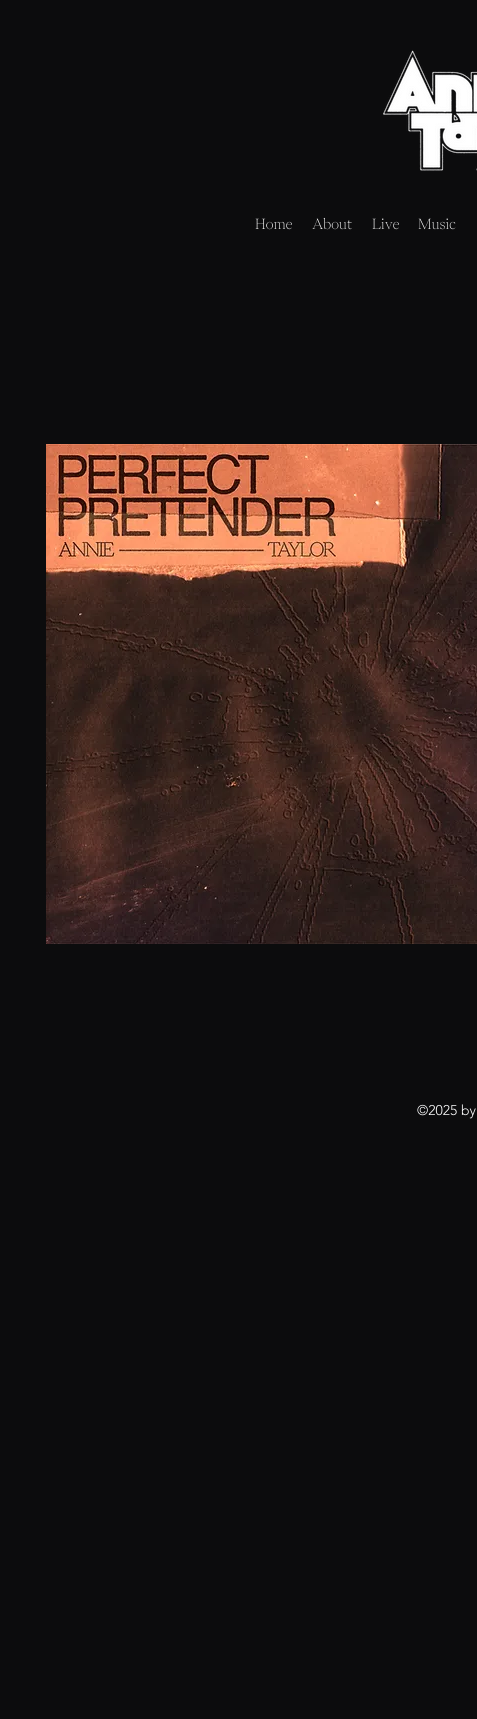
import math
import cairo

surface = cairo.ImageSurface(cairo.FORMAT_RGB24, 477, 1719)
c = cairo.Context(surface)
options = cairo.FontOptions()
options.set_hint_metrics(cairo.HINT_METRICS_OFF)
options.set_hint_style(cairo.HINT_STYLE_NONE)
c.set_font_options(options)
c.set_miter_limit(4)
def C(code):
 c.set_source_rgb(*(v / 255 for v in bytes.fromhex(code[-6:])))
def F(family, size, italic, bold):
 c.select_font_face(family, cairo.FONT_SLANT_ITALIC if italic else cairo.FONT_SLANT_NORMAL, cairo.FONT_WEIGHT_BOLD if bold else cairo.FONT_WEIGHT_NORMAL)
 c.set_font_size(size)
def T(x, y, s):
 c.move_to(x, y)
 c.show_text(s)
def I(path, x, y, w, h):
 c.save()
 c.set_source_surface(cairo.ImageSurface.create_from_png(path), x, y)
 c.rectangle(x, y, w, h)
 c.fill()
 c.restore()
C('0c0c0d')
c.paint()
I('1.png',383,50,94,121)
F('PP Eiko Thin',14,0,0)
C('ffffff')
T(255,229,'Home')
T(312,229,'About')
T(372,229,'Live')
T(418,229,'Music')
I('2.png',46,444,431,500)
F('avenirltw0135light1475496 Light',14,0,0)
T(417,1115,'©2025 by')
surface.write_to_png('o.png')
